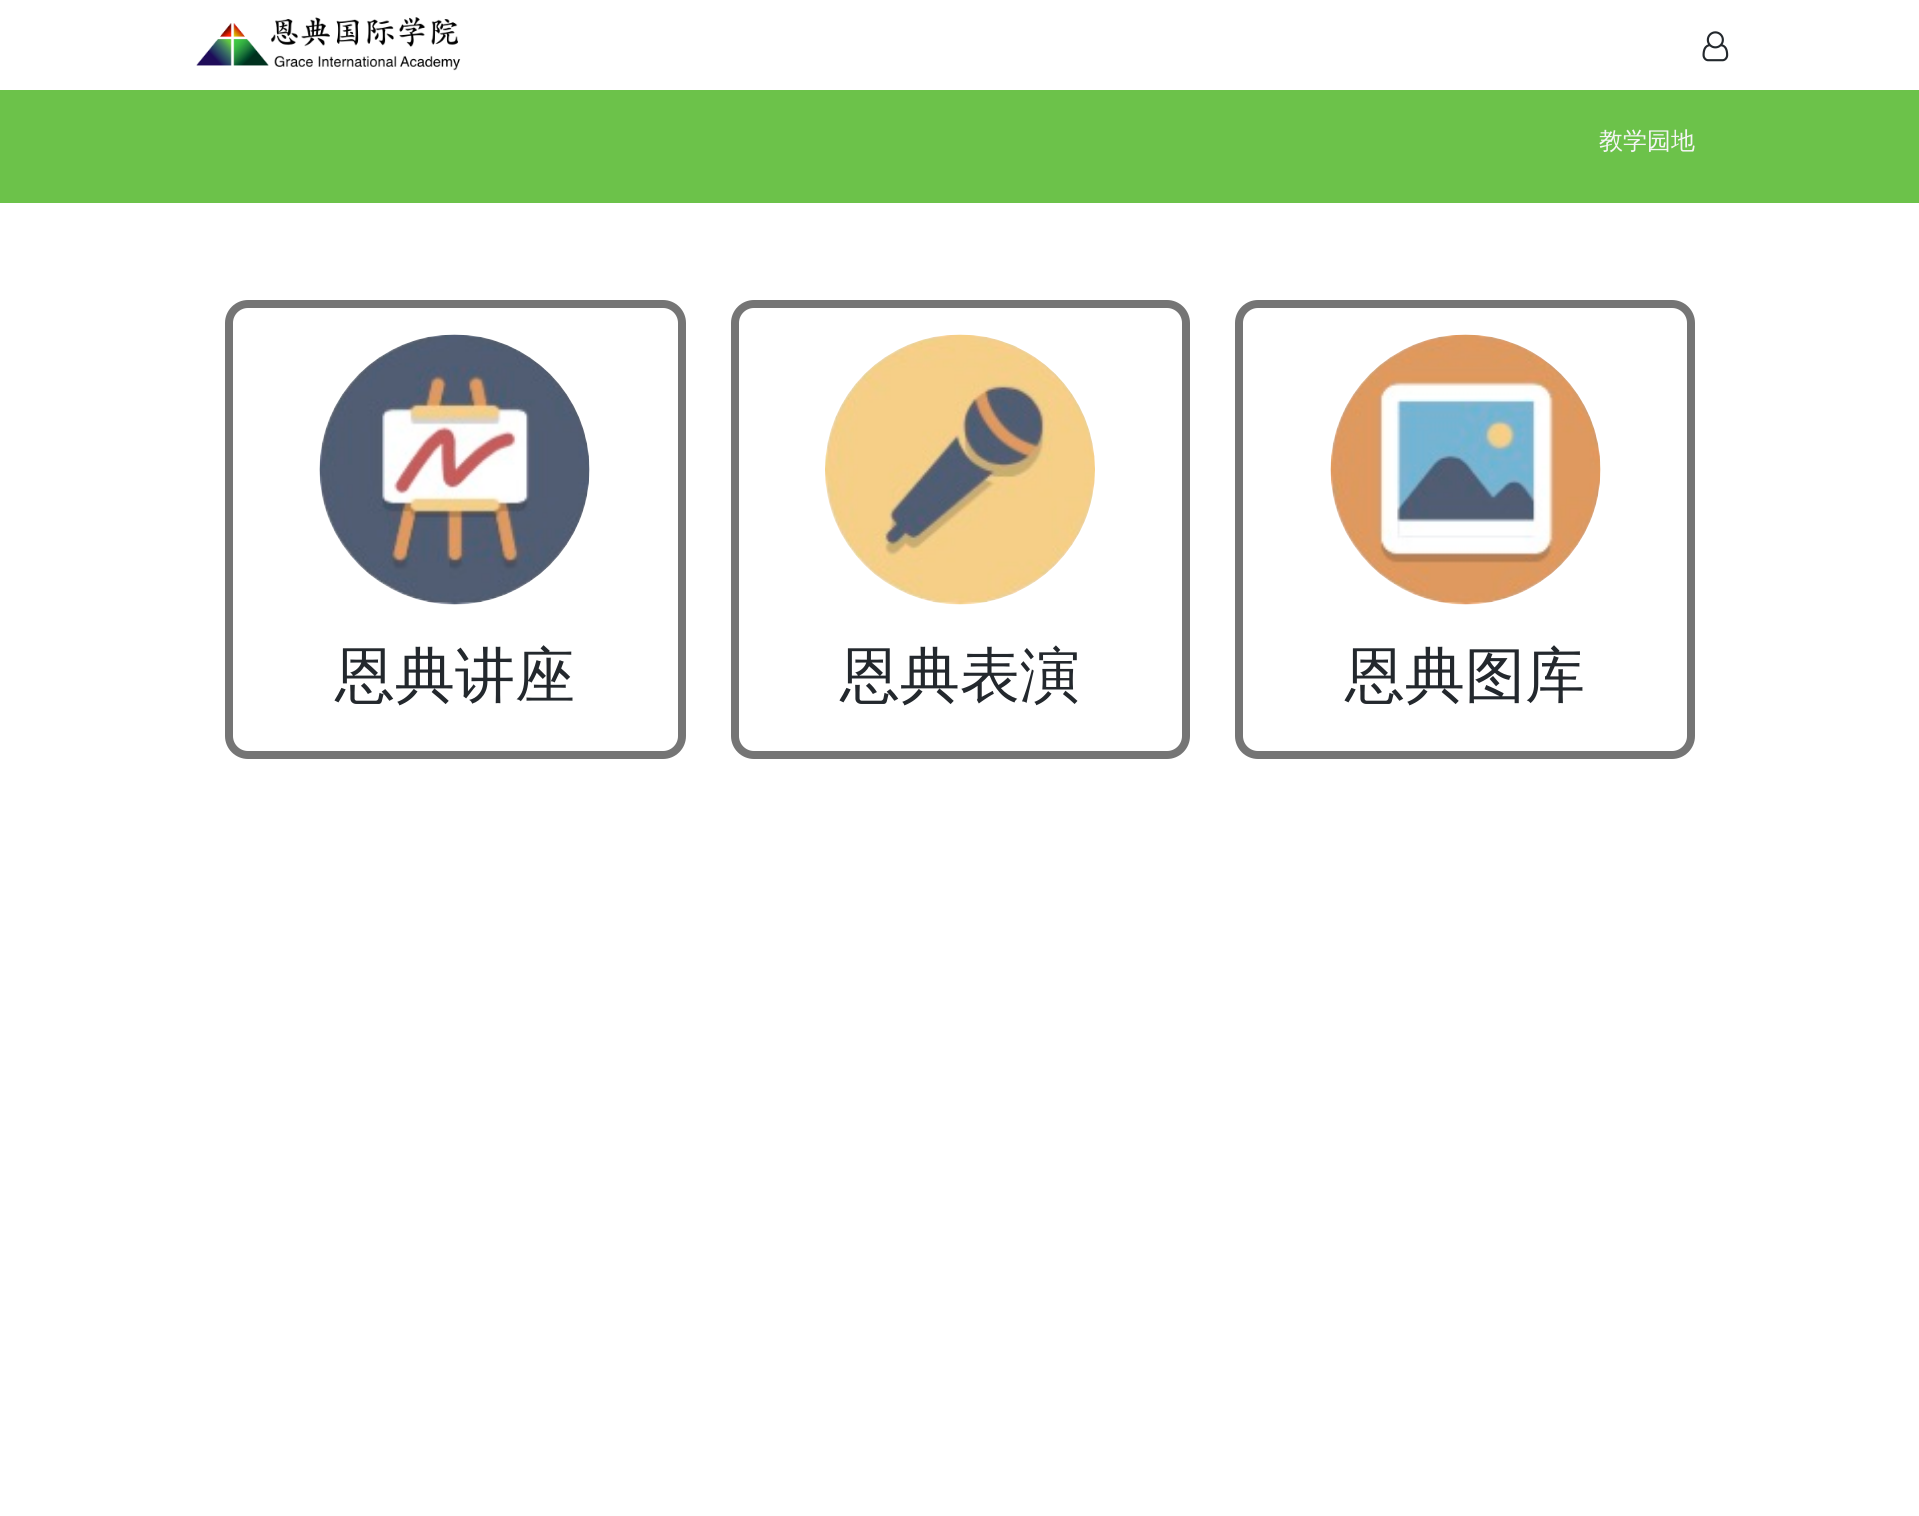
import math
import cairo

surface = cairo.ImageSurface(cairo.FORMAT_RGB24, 1919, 1516)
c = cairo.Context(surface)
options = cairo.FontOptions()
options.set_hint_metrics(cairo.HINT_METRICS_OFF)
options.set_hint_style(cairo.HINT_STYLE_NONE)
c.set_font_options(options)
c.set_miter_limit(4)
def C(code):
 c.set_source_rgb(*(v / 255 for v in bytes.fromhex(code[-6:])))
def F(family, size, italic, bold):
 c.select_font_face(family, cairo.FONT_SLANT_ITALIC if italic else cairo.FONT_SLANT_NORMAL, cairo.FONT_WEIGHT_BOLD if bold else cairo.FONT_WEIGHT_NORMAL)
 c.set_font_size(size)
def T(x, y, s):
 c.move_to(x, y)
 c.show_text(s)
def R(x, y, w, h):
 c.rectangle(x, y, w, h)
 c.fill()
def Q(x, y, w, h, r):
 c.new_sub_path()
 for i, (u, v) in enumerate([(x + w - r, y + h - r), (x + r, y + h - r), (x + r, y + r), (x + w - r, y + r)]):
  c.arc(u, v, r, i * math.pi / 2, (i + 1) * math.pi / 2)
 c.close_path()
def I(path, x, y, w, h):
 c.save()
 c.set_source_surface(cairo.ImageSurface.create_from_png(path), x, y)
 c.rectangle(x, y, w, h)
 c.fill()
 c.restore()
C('ffffff')
c.paint()
I('1.png',196,17,265,54)
I('2.png',1702,31,27,31)
C('6cc24a')
R(0,90,1919,113)
F('WenQuanYi Zen Hei Medium',24,0,0)
C('f5f5f5')
T(1599,149,'教学园地')
Q(229,304,453,451,19)
C('757575')
c.set_line_width(8)
c.stroke()
I('3.png',319,334,271,271)
F('WenQuanYi Zen Hei Medium',60,0,0)
C('23282d')
T(335,696,'恩典讲座')
Q(735,304,451,451,19)
C('757575')
c.stroke()
I('4.png',825,334,270,271)
C('23282d')
T(840,696,'恩典表演')
Q(1239,304,452,451,19)
C('757575')
c.stroke()
I('5.png',1330,334,271,271)
C('23282d')
T(1345,696,'恩典图库')
surface.write_to_png('o.png')
